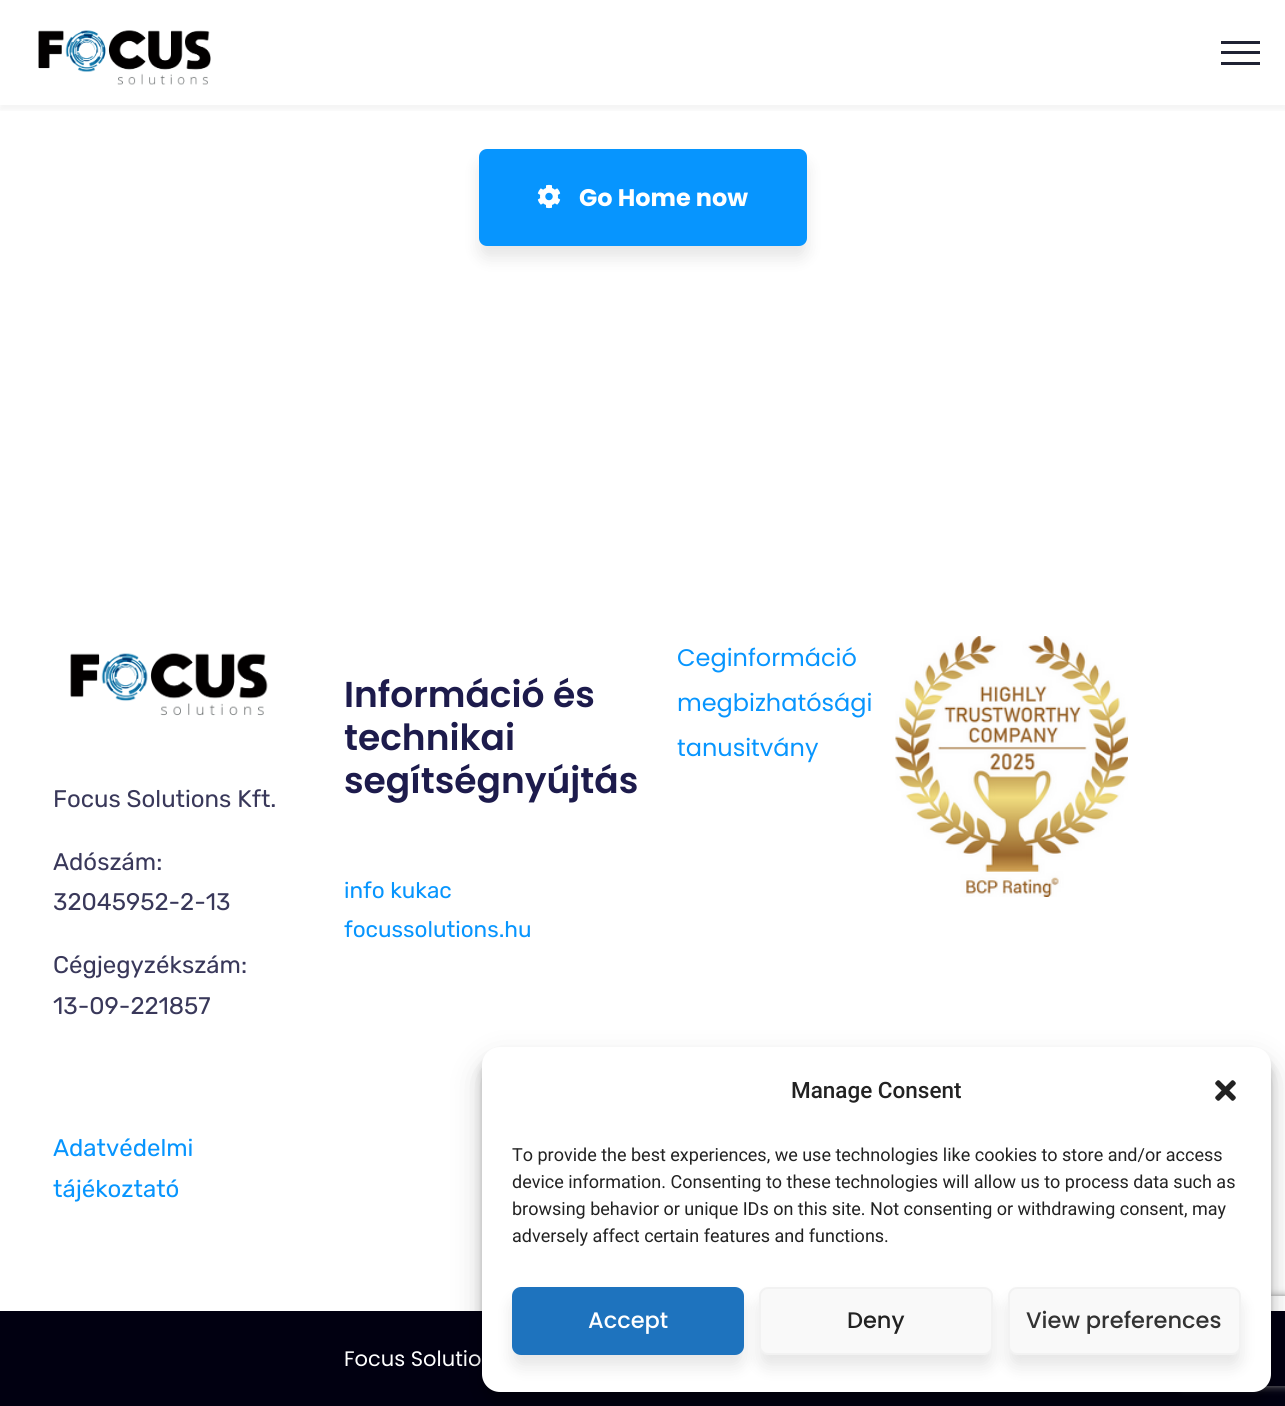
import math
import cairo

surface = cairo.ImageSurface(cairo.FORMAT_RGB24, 1285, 1406)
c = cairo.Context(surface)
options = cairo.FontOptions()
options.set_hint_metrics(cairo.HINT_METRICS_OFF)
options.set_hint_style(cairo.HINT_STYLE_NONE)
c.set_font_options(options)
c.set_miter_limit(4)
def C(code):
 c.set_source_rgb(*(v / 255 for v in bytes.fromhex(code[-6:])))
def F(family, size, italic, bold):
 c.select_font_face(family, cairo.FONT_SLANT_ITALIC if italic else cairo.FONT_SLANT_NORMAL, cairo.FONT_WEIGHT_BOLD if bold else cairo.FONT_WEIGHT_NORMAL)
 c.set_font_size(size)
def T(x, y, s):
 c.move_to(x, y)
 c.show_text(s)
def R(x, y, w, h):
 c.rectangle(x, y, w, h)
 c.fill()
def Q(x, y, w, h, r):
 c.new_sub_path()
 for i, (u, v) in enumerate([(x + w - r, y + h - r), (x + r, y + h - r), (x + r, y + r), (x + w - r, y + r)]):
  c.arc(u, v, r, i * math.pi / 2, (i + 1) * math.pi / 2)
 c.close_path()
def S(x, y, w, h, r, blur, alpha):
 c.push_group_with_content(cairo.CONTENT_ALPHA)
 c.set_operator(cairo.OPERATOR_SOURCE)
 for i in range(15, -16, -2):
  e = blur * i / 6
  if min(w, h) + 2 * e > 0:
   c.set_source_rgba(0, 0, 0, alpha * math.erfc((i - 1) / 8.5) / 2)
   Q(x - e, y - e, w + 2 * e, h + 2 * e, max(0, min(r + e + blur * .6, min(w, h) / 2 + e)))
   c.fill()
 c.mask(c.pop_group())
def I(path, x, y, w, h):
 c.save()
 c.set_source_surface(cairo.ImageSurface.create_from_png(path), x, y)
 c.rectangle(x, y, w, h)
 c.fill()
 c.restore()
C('ffffff')
c.paint()
c.save()
c.rectangle(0,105,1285,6)
c.clip()
C('000000')
S(0,5,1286,105,0,4.5,.05)
c.restore()
I('1.png',38,30,173,55)
C('1f2233')
R(1221,41,39,3)
R(1221,51,39,3)
R(1221,62,39,3)
C('0c0c0c')
S(479,161,328,97,8,7.5,.1)
C('0795fe')
Q(479,149,328,97,8)
c.fill()
I('2.png',537,184,24,25)
F('Poppins',24,0,1)
C('ffffff')
T(579,206,'Go Home now')
I('3.png',70,653,198,63)
F('Rubik',24,0,0)
C('39385a')
T(53,807,'Focus Solutions Kft.')
T(53,870,'Adószám:')
T(53,910,'32045952-2-13')
T(53,973,'Cégjegyzékszám:')
T(53,1014,'13-09-221857')
F('Poppins SemiBold',36,0,0)
C('1d1b4c')
T(344,707,'Információ és')
T(344,750,'technikai')
T(344,793,'segítségnyújtás')
F('Rubik',22.5,0,0)
C('0795fe')
T(344,898,'info kukac')
T(344,937,'focussolutions.hu')
F('Poppins',24,0,0)
T(677,666,'Ceginformáció')
T(677,711,'megbizhatósági')
T(677,756,'tanusitvány')
I('4.png',895,636,233,261)
F('Rubik',24,0,0)
T(53,1156,'Adatvédelmi')
T(53,1197,'tájékoztató')
C('010011')
R(0,1311,1285,95)
F('Poppins',21,0,0)
C('ffffff')
T(344,1366,'Focus Solutio')
C('000000')
S(482,1056,789,345,18,4.5,.23)
S(482,1062,789,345,18,15,.19)
c.save()
c.set_fill_rule(cairo.FILL_RULE_EVEN_ODD)
c.new_path()
c.move_to(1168,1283)
c.line_to(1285,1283)
c.line_to(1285,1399)
c.line_to(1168,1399)
c.close_path()
c.move_to(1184,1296)
c.line_to(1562,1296)
c.curve_to(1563.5,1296,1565,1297.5,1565,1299)
c.line_to(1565,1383)
c.curve_to(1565,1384.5,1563.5,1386,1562,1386)
c.line_to(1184,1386)
c.curve_to(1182.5,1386,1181,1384.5,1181,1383)
c.line_to(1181,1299)
c.curve_to(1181,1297.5,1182.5,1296,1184,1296)
c.close_path()
c.clip()
C('808080')
S(1181,1296,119,90,3,4,1)
c.restore()
C('ffffff')
Q(482,1047,789,345,18)
c.fill()
F('Roboto Medium',22.5,0,0)
C('222222')
T(791,1098,'Manage Consent')
I('5.png',1215,1080,21,21)
F('Roboto',18,0,0)
T(512,1161,'To provide the best experiences, we use technologies like cookies to store and/or access')
T(512,1188,'device information. Consenting to these technologies will allow us to process data such as')
T(512,1215,'browsing behavior or unique IDs on this site. Not consenting or withdrawing consent, may')
T(512,1242,'adversely affect certain features and functions.')
C('0c0c0c')
S(512,1299,232,68,9,7.5,.1)
C('1e73be')
Q(513,1288,230,66,8)
c.fill_preserve()
c.stroke()
F('Poppins Medium',22.5,0,0)
C('ffffff')
T(588,1328,'Accept')
C('0c0c0c')
S(759,1299,234,68,9,7.5,.1)
C('f9f9f9')
Q(760,1288,232,66,8)
c.fill_preserve()
C('f2f2f2')
c.stroke()
C('222222')
T(847,1328,'Deny')
C('0c0c0c')
S(1008,1299,233,68,9,7.5,.1)
C('f9f9f9')
Q(1009,1288,231,66,8)
c.fill_preserve()
C('f2f2f2')
c.stroke()
C('333333')
T(1026,1328,'View preferences')
surface.write_to_png('o.png')
